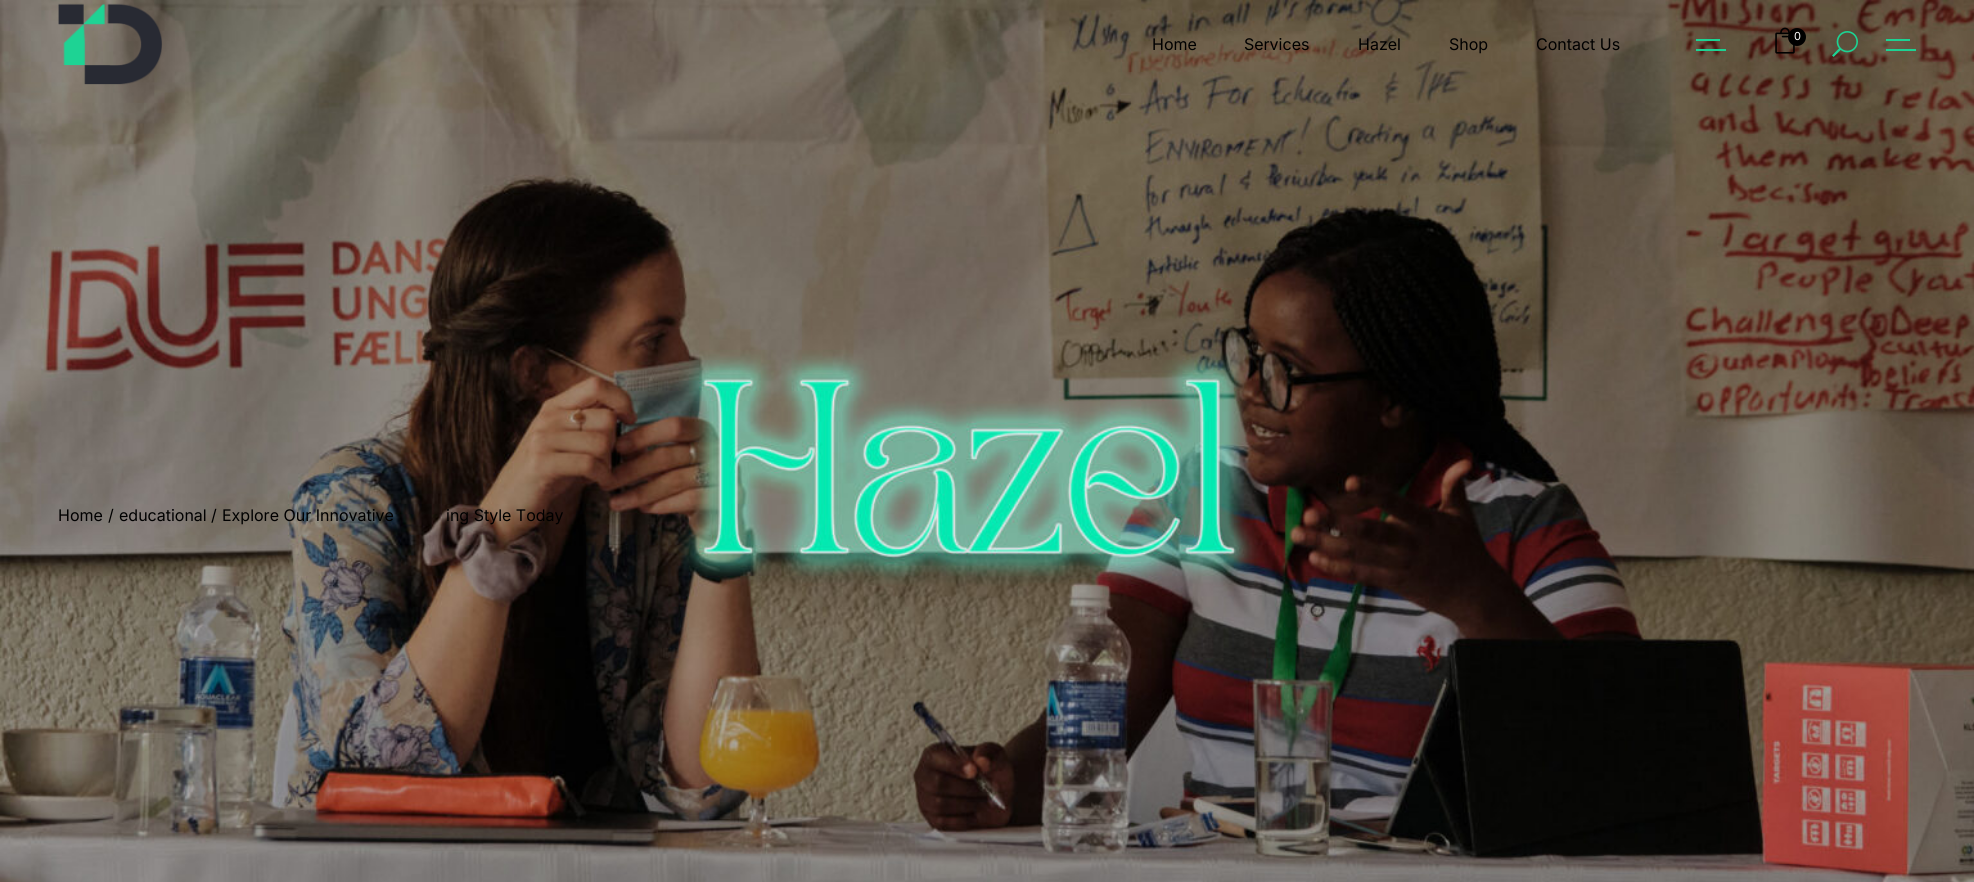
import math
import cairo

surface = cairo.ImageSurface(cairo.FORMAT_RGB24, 1974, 882)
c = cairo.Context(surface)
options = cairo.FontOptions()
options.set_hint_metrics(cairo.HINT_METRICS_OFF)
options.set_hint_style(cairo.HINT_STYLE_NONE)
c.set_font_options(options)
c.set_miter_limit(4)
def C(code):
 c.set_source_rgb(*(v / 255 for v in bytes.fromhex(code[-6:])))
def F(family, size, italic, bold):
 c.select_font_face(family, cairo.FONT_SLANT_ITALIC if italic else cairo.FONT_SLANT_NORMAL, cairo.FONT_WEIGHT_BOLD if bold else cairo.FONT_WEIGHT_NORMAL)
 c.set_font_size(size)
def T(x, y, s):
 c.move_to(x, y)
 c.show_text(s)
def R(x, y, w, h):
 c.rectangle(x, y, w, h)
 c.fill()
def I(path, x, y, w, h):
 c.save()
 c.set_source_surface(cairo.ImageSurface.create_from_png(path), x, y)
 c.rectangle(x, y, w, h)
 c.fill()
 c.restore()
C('ffffff')
c.paint()
I('4.png',0,0,1974,882)
I('1.png',58,3,104,82)
C('1cd393')
R(1696,39,24,2)
R(1696,49,30,2)
I('2.png',1775,27,20,27)
C('000000')
c.arc(1797,37,9,0,2 * math.pi)
c.fill()
F('Inter',11,0,0)
C('ffffff')
T(1794,40,'0')
I('3.png',1832,31,26,26)
C('1cd393')
R(1886,39,24,2)
R(1886,49,30,2)
F('Inter',16,0,0)
C('000000')
T(1152,50,'Home')
T(1244,50,'Services')
T(1358,50,'Hazel')
T(1449,50,'Shop')
T(1536,50,'Contact Us')
T(58,521,'Home')
T(108,521,'/')
T(119,521,'educational')
T(211,521,'/')
T(222,521,'Explore Our Innovative')
T(446,521,'ing Style Today')
surface.write_to_png('o.png')
